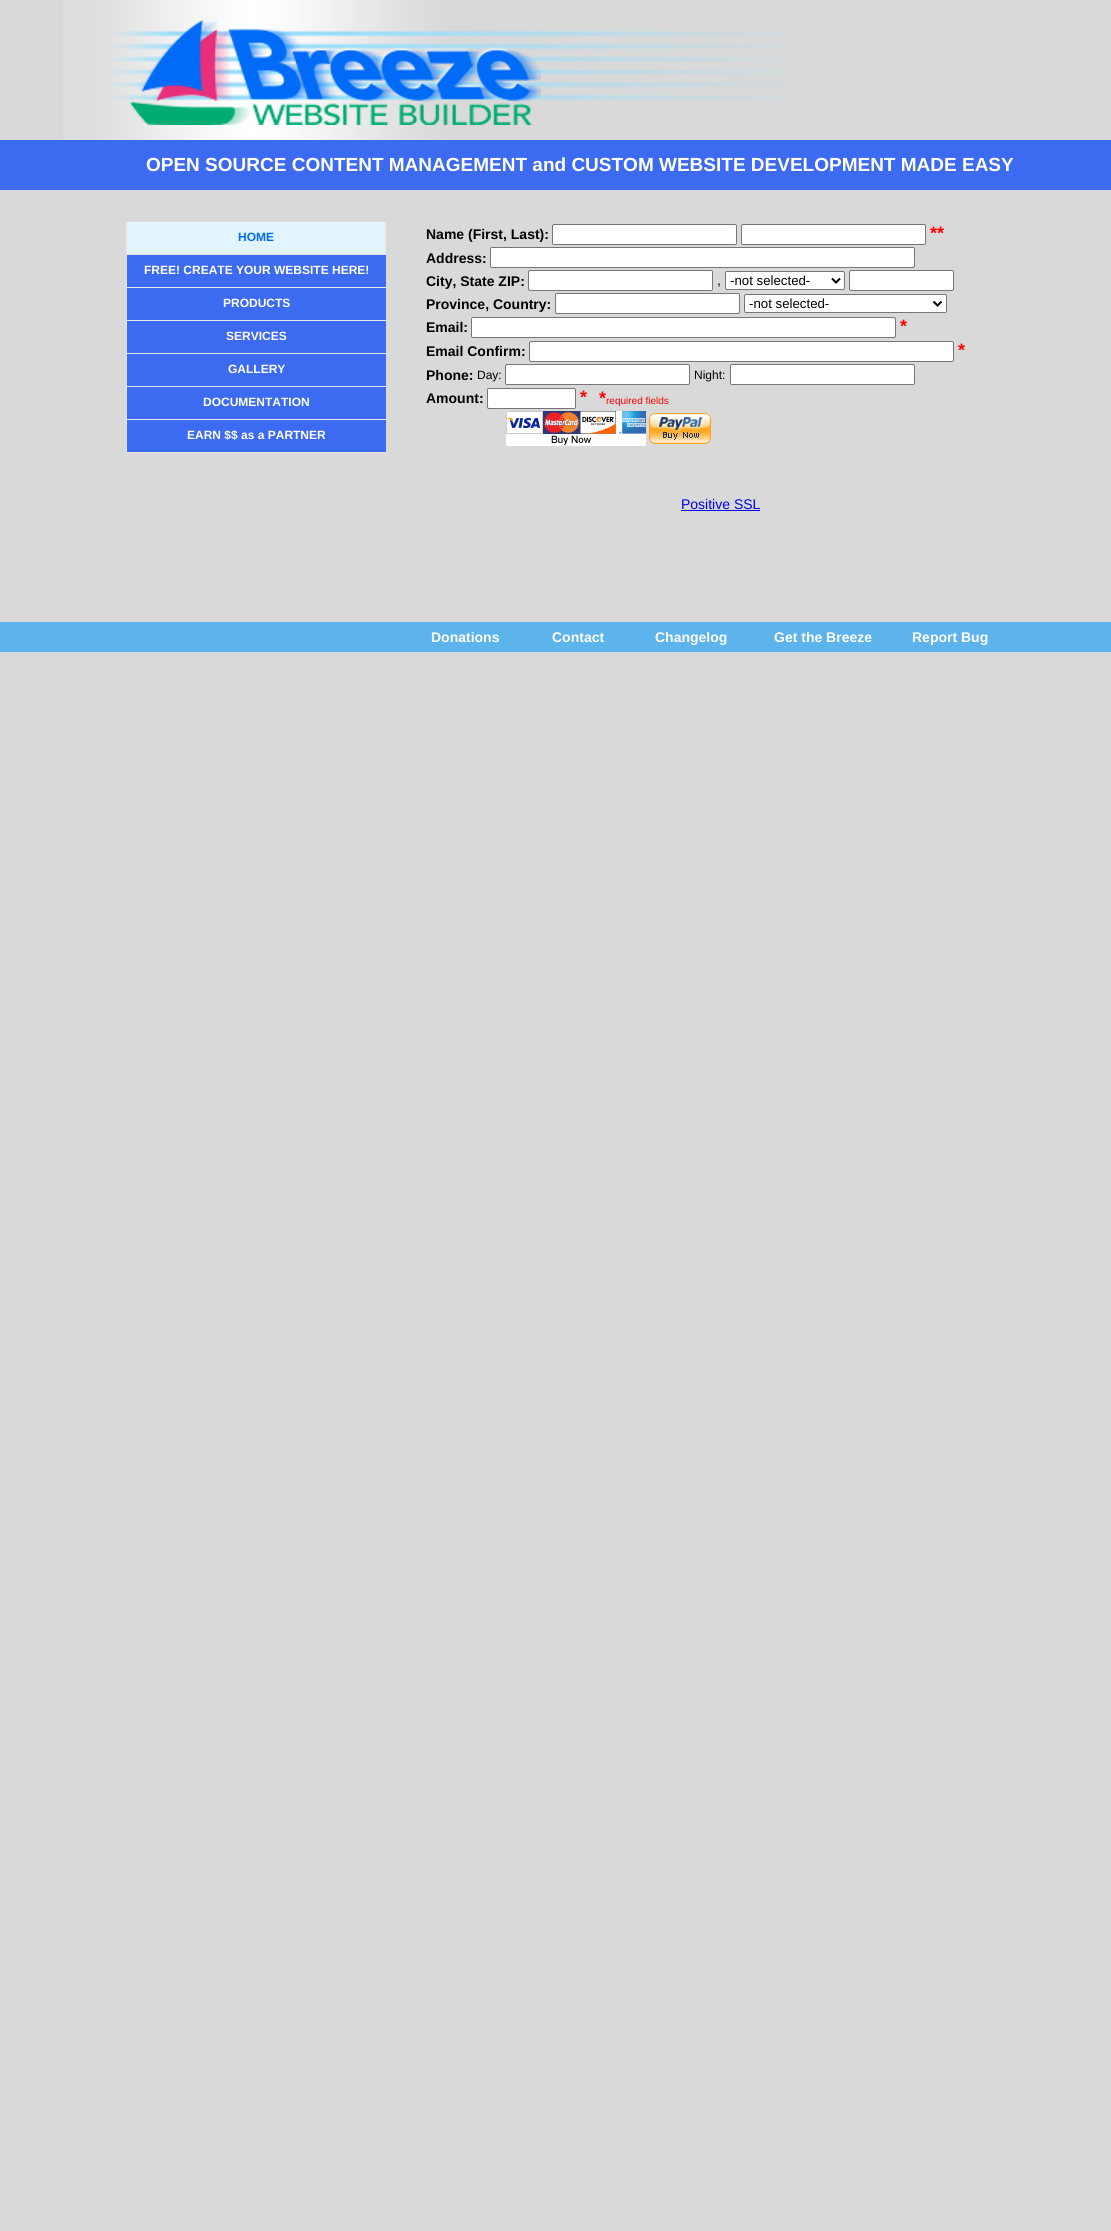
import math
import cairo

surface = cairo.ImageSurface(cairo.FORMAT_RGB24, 1111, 2231)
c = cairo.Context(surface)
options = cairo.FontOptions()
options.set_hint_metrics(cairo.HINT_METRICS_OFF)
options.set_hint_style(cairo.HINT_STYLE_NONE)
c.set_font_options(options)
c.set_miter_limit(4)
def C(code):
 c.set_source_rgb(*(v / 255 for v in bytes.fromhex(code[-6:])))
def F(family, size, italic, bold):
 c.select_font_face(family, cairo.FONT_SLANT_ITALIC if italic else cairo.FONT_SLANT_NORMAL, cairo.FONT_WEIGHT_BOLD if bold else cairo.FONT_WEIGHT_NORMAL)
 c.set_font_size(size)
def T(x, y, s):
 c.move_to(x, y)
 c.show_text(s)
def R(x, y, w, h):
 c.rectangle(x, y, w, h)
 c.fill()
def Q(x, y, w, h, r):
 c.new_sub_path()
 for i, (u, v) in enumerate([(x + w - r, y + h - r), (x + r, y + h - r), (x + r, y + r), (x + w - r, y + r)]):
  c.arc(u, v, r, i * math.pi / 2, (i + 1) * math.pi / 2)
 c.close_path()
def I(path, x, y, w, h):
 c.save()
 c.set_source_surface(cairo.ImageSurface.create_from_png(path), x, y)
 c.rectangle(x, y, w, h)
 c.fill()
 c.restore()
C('d9d9d9')
c.paint()
I('1.png',63,0,728,140)
I('2.png',130,20,411,105)
C('3c6af1')
R(0,140,1111,50)
F('Liberation Sans',19,0,1)
C('ffffff')
T(146,171,'OPEN SOURCE CONTENT MANAGEMENT and CUSTOM WEBSITE DEVELOPMENT MADE EASY')
C('e2f4ff')
R(127,222,258,32)
C('e3e5e6')
R(385,222,1,33)
R(126,254,260,1)
R(126,222,1,33)
F('Liberation Sans',12,0,1)
C('006bf6')
T(238,241,'HOME')
C('3c6af1')
R(127,255,259,32)
C('e3e5e6')
R(126,287,260,1)
R(126,255,1,33)
C('ffffff')
T(144,274,'FREE! CREATE YOUR WEBSITE HERE!')
C('3c6af1')
R(127,288,259,32)
C('e3e5e6')
R(126,320,260,1)
R(126,288,1,33)
C('ffffff')
T(223,307,'PRODUCTS')
C('3c6af1')
R(127,321,259,32)
C('e3e5e6')
R(126,353,260,1)
R(126,321,1,33)
C('ffffff')
T(226,340,'SERVICES')
C('3c6af1')
R(127,354,259,32)
C('e3e5e6')
R(126,386,260,1)
R(126,354,1,33)
C('ffffff')
T(228,373,'GALLERY')
C('3c6af1')
R(127,387,259,32)
C('e3e5e6')
R(126,419,260,1)
R(126,387,1,33)
C('ffffff')
T(203,406,'DOCUMENTATION')
C('3c6af1')
R(127,420,259,32)
C('e3e5e6')
R(126,452,260,1)
R(126,420,1,33)
C('ffffff')
T(187,439,'EARN $$ as a PARTNER')
F('Liberation Sans',14,0,1)
C('000000')
T(426,239,'Name (First, Last):')
C('ffffff')
Q(552.5,224.5,184,20,1.5)
c.fill_preserve()
C('767676')
c.set_line_width(1)
c.stroke()
C('ffffff')
Q(741.5,224.5,184,20,1.5)
c.fill_preserve()
C('767676')
c.stroke()
F('Liberation Sans',18,0,1)
C('ff0000')
T(930,239,'**')
F('Liberation Sans',14,0,1)
C('000000')
T(426,263,'Address:')
C('ffffff')
Q(490.5,247.5,424,20,1.5)
c.fill_preserve()
C('767676')
c.stroke()
C('000000')
T(426,286,'City, State ZIP:')
C('ffffff')
Q(528.5,270.5,184,20,1.5)
c.fill_preserve()
C('767676')
c.stroke()
F('Liberation Sans',14,0,0)
C('000000')
T(717,285,',')
C('ffffff')
Q(725.5,271.5,119,18,1.5)
c.fill_preserve()
C('767676')
c.stroke()
c.new_path()
c.move_to(832,278.5)
c.line_to(836,282.5)
c.line_to(840,278.5)
C('000000')
c.set_line_width(2)
c.stroke()
F('Liberation Sans',13.25,0,0)
T(730,285,'-not selected-')
C('ffffff')
Q(849.5,270.5,104,20,1.5)
c.fill_preserve()
C('767676')
c.set_line_width(1)
c.stroke()
F('Liberation Sans',14,0,1)
C('000000')
T(426,309,'Province, Country:')
C('ffffff')
Q(555.5,293.5,184,20,1.5)
c.fill_preserve()
C('767676')
c.stroke()
C('ffffff')
Q(744.5,294.5,202,18,1.5)
c.fill_preserve()
C('767676')
c.stroke()
c.new_path()
c.move_to(933.5,301.5)
c.line_to(937.5,305.5)
c.line_to(941.5,301.5)
C('000000')
c.set_line_width(2)
c.stroke()
F('Liberation Sans',13.25,0,0)
T(749,308,'-not selected-')
F('Liberation Sans',14,0,1)
T(426,332,'Email:')
C('ffffff')
Q(471.5,317.5,424,20,1.5)
c.fill_preserve()
C('767676')
c.set_line_width(1)
c.stroke()
F('Liberation Sans',18,0,1)
C('ff0000')
T(900,332,'*')
F('Liberation Sans',14,0,1)
C('000000')
T(426,356,'Email Confirm:')
C('ffffff')
Q(529.5,341.5,424,20,1.5)
c.fill_preserve()
C('767676')
c.stroke()
F('Liberation Sans',18,0,1)
C('ff0000')
T(958,356,'*')
F('Liberation Sans',14,0,1)
C('000000')
T(426,380,'Phone:')
F('Liberation Sans',12,0,0)
T(477,379,'Day:')
C('ffffff')
Q(505.5,364.5,184,20,1.5)
c.fill_preserve()
C('767676')
c.stroke()
C('000000')
T(694,379,'Night:')
C('ffffff')
Q(730.5,364.5,184,20,1.5)
c.fill_preserve()
C('767676')
c.stroke()
F('Liberation Sans',14,0,1)
C('000000')
T(426,403,'Amount:')
C('ffffff')
Q(487.5,388.5,88,20,1.5)
c.fill_preserve()
C('767676')
c.stroke()
F('Liberation Sans',18,0,1)
C('ff0000')
T(580,403,'*')
T(599,404,'*')
F('Liberation Sans',10,0,0)
T(606,404,'required fields')
I('3.png',506,411,140,35)
I('4.png',649,413,62,31)
F('Liberation Sans',14,0,0)
C('0000ee')
T(681,509,'Positive SSL')
R(681,510,79,1)
C('5db3ec')
R(0,622,1111,30)
F('Liberation Sans',14,0,1)
C('ffffff')
T(431,642,'Donations')
T(552,642,'Contact')
T(655,642,'Changelog')
T(774,642,'Get the Breeze')
T(912,642,'Report Bug')
surface.write_to_png('o.png')
